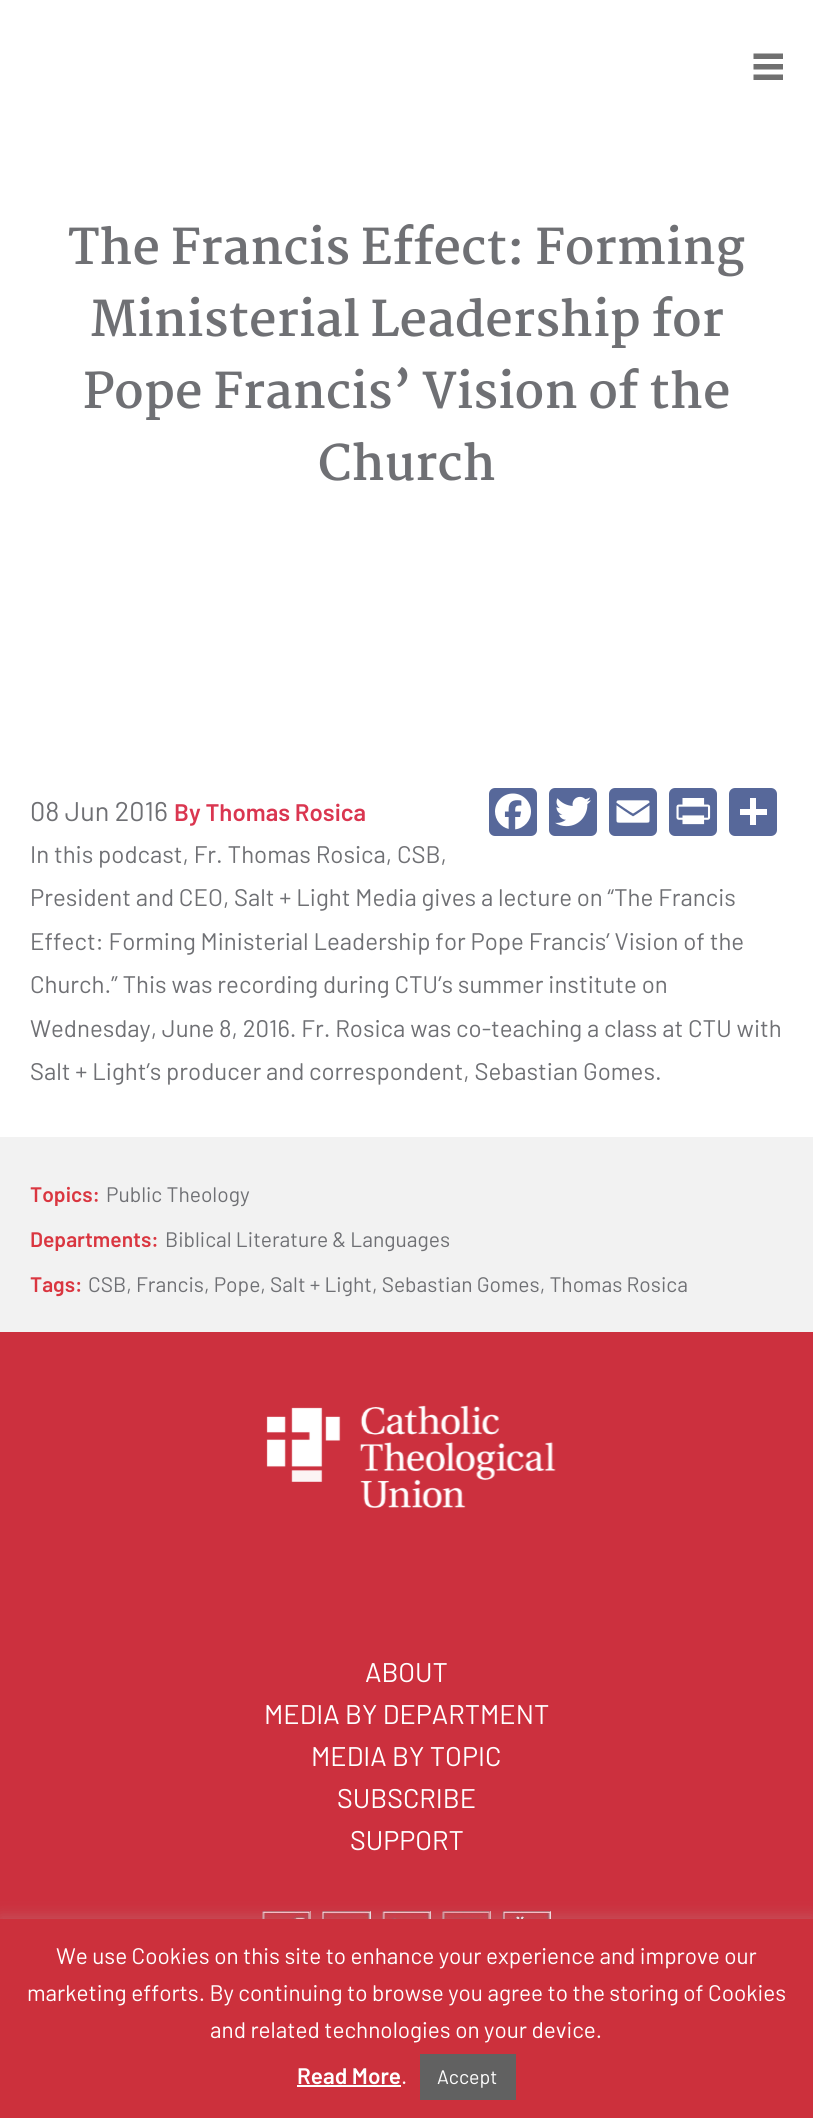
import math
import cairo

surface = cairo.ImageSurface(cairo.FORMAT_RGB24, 813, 2118)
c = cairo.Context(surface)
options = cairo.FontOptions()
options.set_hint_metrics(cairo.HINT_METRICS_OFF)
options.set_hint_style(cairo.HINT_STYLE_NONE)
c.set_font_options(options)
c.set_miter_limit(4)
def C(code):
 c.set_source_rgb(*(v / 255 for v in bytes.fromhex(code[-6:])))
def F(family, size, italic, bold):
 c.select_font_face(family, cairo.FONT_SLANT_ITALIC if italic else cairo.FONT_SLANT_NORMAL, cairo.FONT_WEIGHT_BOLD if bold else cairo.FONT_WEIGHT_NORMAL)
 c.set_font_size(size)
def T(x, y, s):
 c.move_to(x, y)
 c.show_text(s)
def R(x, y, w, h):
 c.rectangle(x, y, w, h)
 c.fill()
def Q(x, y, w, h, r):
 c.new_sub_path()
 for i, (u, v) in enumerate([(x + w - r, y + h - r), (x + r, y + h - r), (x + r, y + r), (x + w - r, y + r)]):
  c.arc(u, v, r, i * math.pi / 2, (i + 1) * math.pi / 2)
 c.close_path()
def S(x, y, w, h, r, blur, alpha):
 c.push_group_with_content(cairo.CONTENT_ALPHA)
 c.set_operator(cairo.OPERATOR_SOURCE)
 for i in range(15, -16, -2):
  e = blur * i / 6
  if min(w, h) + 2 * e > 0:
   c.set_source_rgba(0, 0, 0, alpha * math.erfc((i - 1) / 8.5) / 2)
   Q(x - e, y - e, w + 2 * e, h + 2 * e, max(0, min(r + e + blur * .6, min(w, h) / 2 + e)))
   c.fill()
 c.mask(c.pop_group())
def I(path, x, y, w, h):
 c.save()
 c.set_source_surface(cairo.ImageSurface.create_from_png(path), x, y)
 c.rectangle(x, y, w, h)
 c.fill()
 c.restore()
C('cc303e')
c.paint()
C('ffffff')
R(0,0,813,1137)
C('707070')
c.set_fill_rule(cairo.FILL_RULE_EVEN_ODD)
c.new_path()
c.move_to(753.5,80)
c.line_to(753.5,74.5)
c.line_to(783,74.5)
c.line_to(783,80)
c.close_path()
c.move_to(753.5,69.5)
c.line_to(753.5,64)
c.line_to(783,64)
c.line_to(783,69.5)
c.close_path()
c.move_to(753.5,53.5)
c.line_to(783,53.5)
c.line_to(783,59)
c.line_to(753.5,59)
c.close_path()
c.fill()
F('Martel',48,0,1)
C('6f7074')
T(68,264,'The Francis Effect: Forming')
T(90,336,'Ministerial Leadership for')
T(83,408,'Pope Francis’ Vision of the')
T(318,480,'Church')
F('Barlow',27,0,0)
T(30,821,'08 Jun 2016')
F('Barlow SemiBold',24,0,0)
C('da3650')
T(174,821,'By Thomas Rosica')
C('57689a')
Q(489,788,48,48,6)
c.fill()
I('1.png',495,793,36,37)
Q(549,788,48,48,6)
c.fill()
I('2.png',555,796,36,31)
Q(609,788,48,48,6)
c.fill()
I('3.png',616,800,34,23)
Q(669,788,48,48,6)
c.fill()
I('4.png',676,798,35,27)
Q(729,788,48,48,6)
c.fill()
C('ffffff')
R(750,798,6,27)
R(740,809,27,6)
F('Barlow',24,0,0)
C('6f7074')
T(30,863,'In this podcast, Fr. Thomas Rosica, CSB,')
T(30,906,'President and CEO, Salt + Light Media gives a lecture on “The Francis')
T(30,950,'Effect: Forming Ministerial Leadership for Pope Francis’ Vision of the')
T(30,993,'Church.” This was recording during CTU’s summer institute on')
T(30,1037,'Wednesday, June 8, 2016. Fr. Rosica was co-teaching a class at CTU with')
T(30,1080,'Salt + Light’s producer and correspondent, Sebastian Gomes.')
C('f2f2f2')
R(0,1137,813,195)
F('Barlow SemiBold',21,0,0)
C('da3640')
T(30,1202,'Topics:')
F('Barlow',21,0,0)
C('6f7074')
T(106,1202,'Public Theology')
F('Barlow SemiBold',21,0,0)
C('da3640')
T(30,1247,'Departments:')
F('Barlow',21,0,0)
C('6f7074')
T(165,1247,'Biblical Literature & Languages')
F('Barlow SemiBold',21,0,0)
C('da3640')
T(30,1292,'Tags:')
F('Barlow',21,0,0)
C('6f7074')
T(88,1292,'CSB, Francis, Pope, Salt + Light, Sebastian Gomes, Thomas Rosica')
I('5.png',266,1405,290,103)
F('Barlow',27,0,0)
C('ffffff')
T(365,1682,'ABOUT')
T(264,1724,'MEDIA BY DEPARTMENT')
T(311,1766,'MEDIA BY TOPIC')
T(337,1808,'SUBSCRIBE')
T(350,1850,'SUPPORT')
R(310,1911,1,8)
I('6.png',262,1911,49,8)
R(370,1911,1,8)
I('7.png',322,1911,49,8)
R(430,1911,1,8)
I('8.png',382,1911,49,8)
R(490,1911,1,8)
I('9.png',442,1911,49,8)
R(550,1911,1,8)
I('10.png',502,1911,49,8)
C('acabab')
S(0,1917,813,200,0,7.5,.3)
C('cc303c')
R(0,1919,813,199)
F('Barlow',22.5,0,0)
C('ffffff')
T(56,1964,'We use Cookies on this site to enhance your experience and improve our')
T(27,2001,'marketing efforts. By continuing to browse you agree to the storing of Cookies')
T(210,2038,'and related technologies on your device.')
F('Barlow SemiBold',22.5,0,0)
T(297,2084,'Read More')
R(297,2085,104,2)
F('Barlow',22.5,0,0)
T(401,2084,'.')
C('616161')
R(420,2054,96,46)
F('Barlow',19.5,0,0)
C('ffffff')
T(437,2084,'Accept')
surface.write_to_png('o.png')
